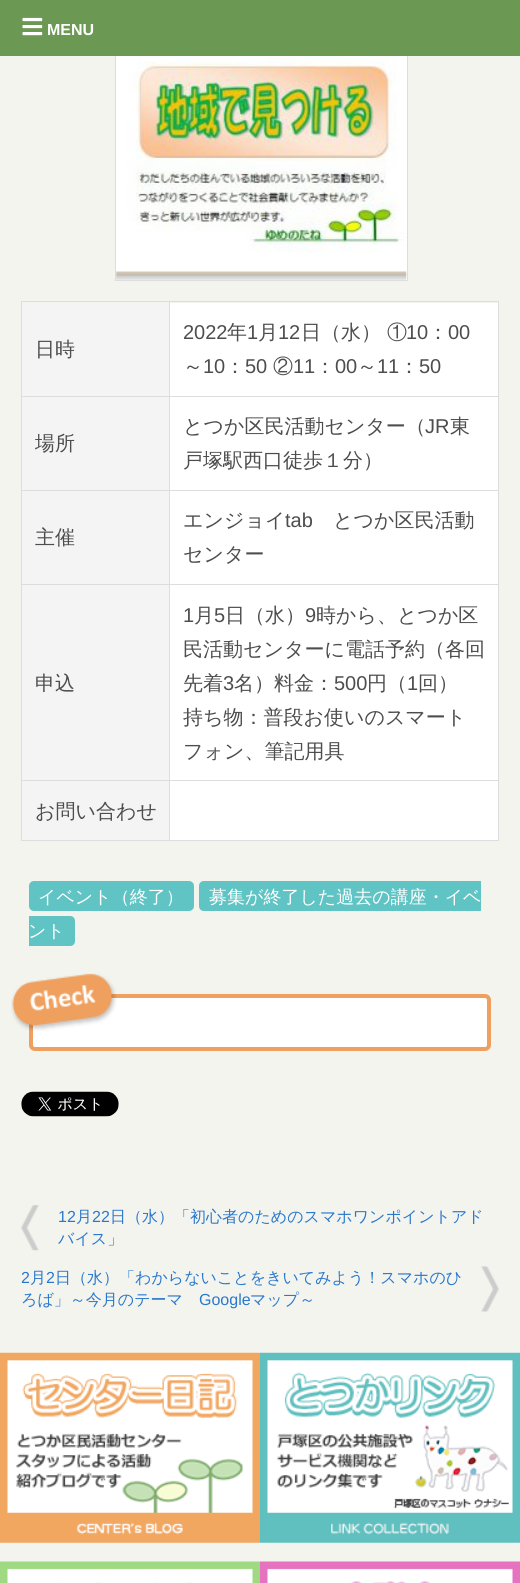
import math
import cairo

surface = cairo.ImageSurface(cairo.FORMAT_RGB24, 520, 1583)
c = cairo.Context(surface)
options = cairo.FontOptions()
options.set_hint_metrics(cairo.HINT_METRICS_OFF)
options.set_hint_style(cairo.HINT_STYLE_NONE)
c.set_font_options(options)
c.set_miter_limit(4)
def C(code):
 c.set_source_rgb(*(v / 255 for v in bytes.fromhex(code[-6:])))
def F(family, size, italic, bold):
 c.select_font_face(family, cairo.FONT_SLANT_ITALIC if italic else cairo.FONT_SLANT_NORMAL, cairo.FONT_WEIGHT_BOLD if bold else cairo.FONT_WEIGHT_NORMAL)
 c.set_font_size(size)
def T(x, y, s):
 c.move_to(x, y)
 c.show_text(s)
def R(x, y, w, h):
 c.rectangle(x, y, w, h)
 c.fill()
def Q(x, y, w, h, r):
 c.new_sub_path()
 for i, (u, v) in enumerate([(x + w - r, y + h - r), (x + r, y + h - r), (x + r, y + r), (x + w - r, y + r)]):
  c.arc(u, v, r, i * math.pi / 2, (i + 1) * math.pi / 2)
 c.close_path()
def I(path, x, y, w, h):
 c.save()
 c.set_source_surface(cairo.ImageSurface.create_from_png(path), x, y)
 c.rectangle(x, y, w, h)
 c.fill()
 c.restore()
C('f4f4ef')
c.paint()
C('ffffff')
R(116,56,291,224)
c.rectangle(115.5,30.5,292,250)
C('dddddd')
c.set_line_width(1)
c.stroke()
C('6b9852')
R(0,0,520,56)
I('1.png',22,17,21,19)
F('Liberation Sans',16,0,1)
C('ffffff')
T(47,35,'MENU')
I('2.png',116,56,291,224)
C('dddddd')
R(21,301,478,1)
R(498,301,1,540)
R(21,840,478,1)
R(21,301,1,540)
C('f4f4f4')
R(22,303,147,93)
F('WenQuanYi Zen Hei Medium',20,0,0)
C('4d4d4d')
T(35,356,'日時')
C('ffffff')
R(170,303,328,93)
C('dddddd')
R(169,396,330,1)
R(169,490,330,1)
R(169,584,330,1)
R(169,780,330,1)
R(169,780,1,61)
R(21,780,149,1)
R(169,584,1,197)
R(21,584,149,1)
R(169,490,1,95)
R(21,490,149,1)
R(169,396,1,95)
R(21,396,149,1)
R(169,301,1,97)
F('Liberation Sans',20,0,0)
C('4d4d4d')
T(183,339,'2022')
F('WenQuanYi Zen Hei Medium',20,0,0)
T(227,339,'年')
F('Liberation Sans',20,0,0)
T(247,339,'1')
F('WenQuanYi Zen Hei Medium',20,0,0)
T(258,339,'月')
F('Liberation Sans',20,0,0)
T(278,339,'12')
F('WenQuanYi Zen Hei Medium',20,0,0)
T(301,339,'日（水） ①')
F('Liberation Sans',20,0,0)
T(406,339,'10')
F('WenQuanYi Zen Hei Medium',20,0,0)
T(428,339,'：')
F('Liberation Sans',20,0,0)
T(448,339,'00')
F('WenQuanYi Zen Hei Medium',20,0,0)
T(183,373,'～')
F('Liberation Sans',20,0,0)
T(203,373,'10')
F('WenQuanYi Zen Hei Medium',20,0,0)
T(225,373,'：')
F('Liberation Sans',20,0,0)
T(245,373,'50')
F('WenQuanYi Zen Hei Medium',20,0,0)
T(273,373,'②')
F('Liberation Sans',20,0,0)
T(293,373,'11')
F('WenQuanYi Zen Hei Medium',20,0,0)
T(315,373,'：')
F('Liberation Sans',20,0,0)
T(335,373,'00')
F('WenQuanYi Zen Hei Medium',20,0,0)
T(357,373,'～')
F('Liberation Sans',20,0,0)
T(377,373,'11')
F('WenQuanYi Zen Hei Medium',20,0,0)
T(399,373,'：')
F('Liberation Sans',20,0,0)
T(419,373,'50')
C('f4f4f4')
R(22,397,147,93)
F('WenQuanYi Zen Hei Medium',20,0,0)
C('4d4d4d')
T(35,450,'場所')
C('ffffff')
R(170,397,328,93)
C('4d4d4d')
T(183,433,'とつか区民活動センター（')
F('Liberation Sans',20,0,0)
T(425,433,'JR')
F('WenQuanYi Zen Hei Medium',20,0,0)
T(450,433,'東')
T(183,467,'戸塚駅西口徒歩１分）')
C('f4f4f4')
R(22,491,147,93)
C('4d4d4d')
T(35,544,'主催')
C('ffffff')
R(170,491,328,93)
C('4d4d4d')
T(183,527,'エンジョイ')
F('Liberation Sans',20,0,0)
T(285,527,'tab')
F('WenQuanYi Zen Hei Medium',20,0,0)
T(333,527,'とつか区民活動')
T(183,561,'センター')
C('f4f4f4')
R(22,585,147,195)
C('4d4d4d')
T(35,690,'申込')
C('ffffff')
R(170,585,328,195)
F('Liberation Sans',20,0,0)
C('4d4d4d')
T(183,622,'1')
F('WenQuanYi Zen Hei Medium',20,0,0)
T(194,622,'月')
F('Liberation Sans',20,0,0)
T(214,622,'5')
F('WenQuanYi Zen Hei Medium',20,0,0)
T(225,622,'日（水）')
F('Liberation Sans',20,0,0)
T(305,622,'9')
F('WenQuanYi Zen Hei Medium',20,0,0)
T(316,622,'時から、とつか区')
T(183,656,'民活動センターに電話予約（各回')
T(183,690,'先着')
F('Liberation Sans',20,0,0)
T(223,690,'3')
F('WenQuanYi Zen Hei Medium',20,0,0)
T(234,690,'名）料金：')
F('Liberation Sans',20,0,0)
T(334,690,'500')
F('WenQuanYi Zen Hei Medium',20,0,0)
T(367,690,'円（')
F('Liberation Sans',20,0,0)
T(407,690,'1')
F('WenQuanYi Zen Hei Medium',20,0,0)
T(418,690,'回）')
T(183,724,'持ち物：普段お使いのスマート')
T(183,758,'フォン、筆記用具')
C('f4f4f4')
R(22,781,147,59)
C('4d4d4d')
T(35,818,'お問い合わせ')
C('ffffff')
R(170,781,328,59)
C('60c4c4')
Q(29,881,165,30,5)
c.fill()
F('WenQuanYi Zen Hei Medium',18,0,0)
C('ffffff')
T(38,903,'イベント（終了）')
C('60c4c4')
c.new_path()
c.move_to(204,881)
c.line_to(481,881)
c.line_to(481,911)
c.line_to(204,911)
c.curve_to(201,911,199,909,199,906)
c.line_to(199,886)
c.curve_to(199,883,201,881,204,881)
c.close_path()
c.fill()
C('ffffff')
T(209,903,'募集が終了した過去の講座・イベ')
C('60c4c4')
c.new_path()
c.move_to(29,916)
c.line_to(70,916)
c.curve_to(73,916,75,918,75,921)
c.line_to(75,941)
c.curve_to(75,944,73,946,70,946)
c.line_to(29,946)
c.close_path()
c.fill()
C('ffffff')
T(28,937,'ント')
Q(31,996,458,53,4)
c.fill_preserve()
C('ef9f5e')
c.set_line_width(4)
c.stroke()
I('3.png',11,973,106,58)
I('4.png',21,1091,98,26)
I('5.png',21,1205,18,46)
F('Liberation Sans',16,0,0)
C('2a78cc')
T(58,1222,'12')
F('WenQuanYi Zen Hei Medium',16,0,0)
T(76,1222,'月')
F('Liberation Sans',16,0,0)
T(92,1222,'22')
F('WenQuanYi Zen Hei Medium',16,0,0)
T(110,1222,'日（水）「初心者のためのスマホワンポイントアド')
T(58,1244,'バイス」')
I('6.png',481,1266,18,46)
F('Liberation Sans',16,0,0)
T(21,1283,'2')
F('WenQuanYi Zen Hei Medium',16,0,0)
T(30,1283,'月')
F('Liberation Sans',16,0,0)
T(46,1283,'2')
F('WenQuanYi Zen Hei Medium',16,0,0)
T(55,1283,'日（水）「わからないことをきいてみよう！スマホのひ')
T(21,1305,'ろば」～今月のテーマ')
F('Liberation Sans',16,0,0)
T(199,1305,'Google')
F('WenQuanYi Zen Hei Medium',16,0,0)
T(250,1305,'マップ～')
I('7.png',0,1352,260,191)
I('8.png',260,1352,260,191)
I('9.png',0,1561,260,22)
I('10.png',260,1561,260,22)
surface.write_to_png('o.png')
